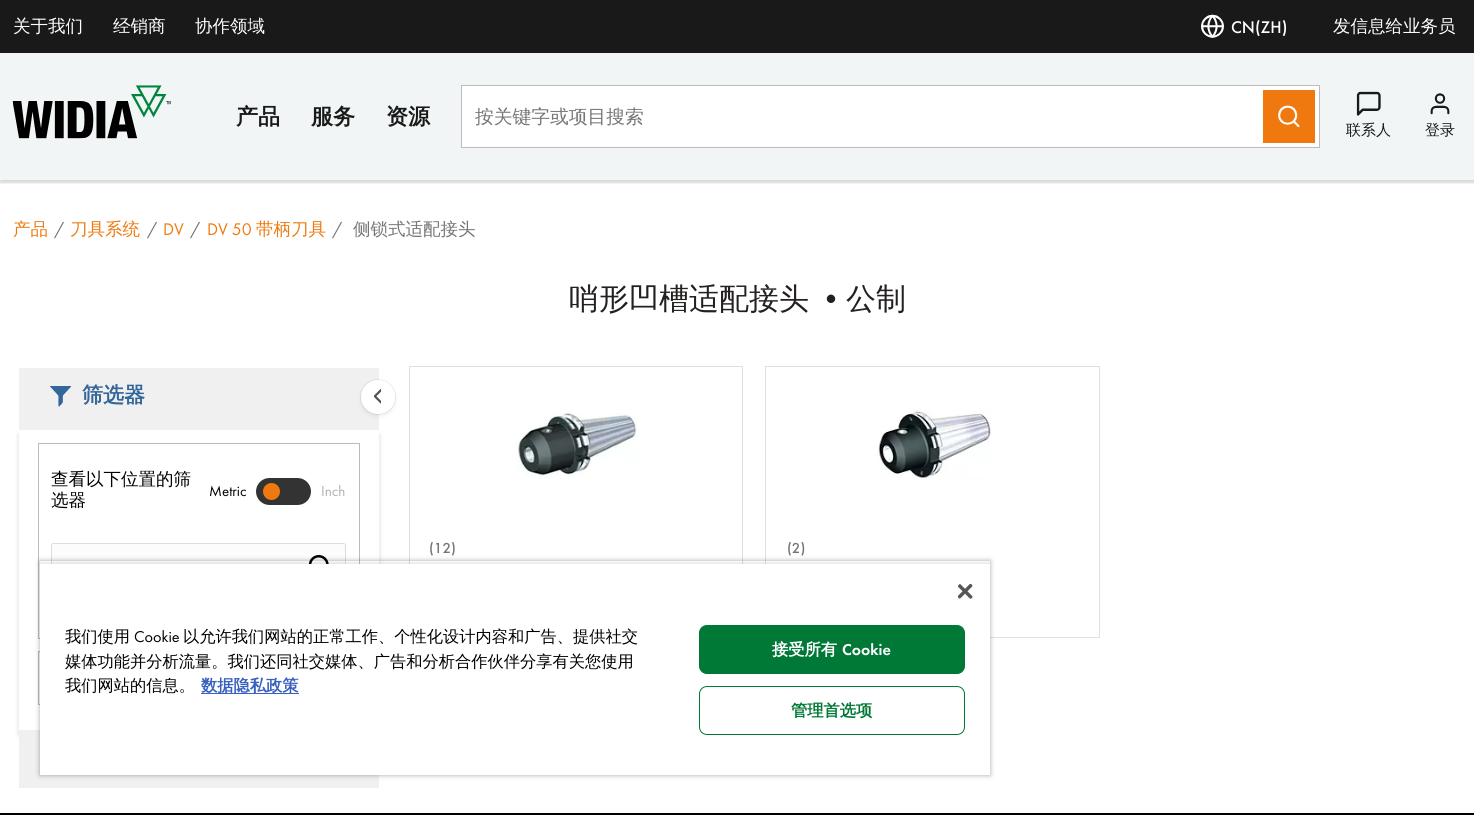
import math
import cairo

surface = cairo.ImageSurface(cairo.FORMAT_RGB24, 1474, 815)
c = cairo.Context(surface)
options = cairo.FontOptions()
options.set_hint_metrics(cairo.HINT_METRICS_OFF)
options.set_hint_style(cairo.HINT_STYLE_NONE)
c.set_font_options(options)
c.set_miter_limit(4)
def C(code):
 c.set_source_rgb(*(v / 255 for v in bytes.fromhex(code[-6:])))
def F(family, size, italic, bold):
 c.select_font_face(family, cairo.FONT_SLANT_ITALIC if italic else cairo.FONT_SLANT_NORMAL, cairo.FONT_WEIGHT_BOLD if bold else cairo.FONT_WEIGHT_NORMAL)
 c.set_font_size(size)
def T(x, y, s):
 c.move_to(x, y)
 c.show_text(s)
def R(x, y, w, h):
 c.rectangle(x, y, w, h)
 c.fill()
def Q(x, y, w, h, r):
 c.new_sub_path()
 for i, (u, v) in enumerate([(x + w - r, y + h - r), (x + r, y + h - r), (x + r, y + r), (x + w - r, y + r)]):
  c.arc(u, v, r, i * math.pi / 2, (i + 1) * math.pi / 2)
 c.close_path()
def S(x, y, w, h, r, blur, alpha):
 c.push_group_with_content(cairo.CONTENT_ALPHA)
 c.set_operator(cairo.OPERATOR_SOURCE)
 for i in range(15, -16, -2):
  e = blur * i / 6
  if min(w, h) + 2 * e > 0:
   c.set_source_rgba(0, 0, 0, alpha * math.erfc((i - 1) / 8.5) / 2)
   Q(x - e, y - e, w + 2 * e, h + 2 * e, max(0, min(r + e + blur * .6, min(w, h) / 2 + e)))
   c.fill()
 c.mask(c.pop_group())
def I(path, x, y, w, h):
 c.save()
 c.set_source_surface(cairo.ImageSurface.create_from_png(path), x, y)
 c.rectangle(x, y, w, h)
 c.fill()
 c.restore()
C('ffffff')
c.paint()
C('f1f5f5')
R(0,53,1474,127)
C('191919')
R(0,0,1474,53)
F('WenQuanYi Zen Hei Medium',17.5,0,0)
C('ffffff')
T(13,32,'关于我们')
T(113,32,'经销商')
T(195,32,'协作领域')
I('1.png',1201,14,23,24)
F('Futura PT Medium',17.5,0,0)
T(1231,33,'CN(ZH)')
F('WenQuanYi Zen Hei Medium',17.5,0,0)
T(1333,32,'发信息给业务员')
c.save()
c.rectangle(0,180,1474,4)
c.clip()
C('000000')
S(0,55,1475,128,0,1,.15)
c.restore()
I('2.png',12,85,159,54)
F('WenQuanYi Zen Hei',22,0,1)
C('191919')
T(236,124,'产品')
T(311,124,'服务')
T(386,124,'资源')
C('ffffff')
c.rectangle(461.5,85.5,858,62)
c.fill_preserve()
C('bcbcbc')
c.set_line_width(1)
c.stroke()
F('WenQuanYi Zen Hei Medium',18.75,0,0)
C('757575')
T(475,123,'按关键字或项目搜索')
C('ef790e')
R(1263,90,52,53)
I('3.png',1278,105,22,22)
I('4.png',1356,91,25,25)
F('WenQuanYi Zen Hei Medium',15,0,0)
C('191919')
T(1346,135,'联系人')
I('5.png',1430,93,20,22)
T(1425,135,'登录')
F('WenQuanYi Zen Hei Medium',17.5,0,0)
C('ef790e')
T(13,235,'产品')
F('Futura PT',17.5,0,0)
C('757575')
T(54,235,'/')
F('WenQuanYi Zen Hei Medium',17.5,0,0)
C('ef790e')
T(70,235,'刀具系统')
F('Futura PT',17.5,0,0)
C('757575')
T(147,235,'/')
C('ef790e')
T(163,235,'DV')
C('757575')
T(190,235,'/')
C('ef790e')
T(207,235,'DV 50')
F('WenQuanYi Zen Hei Medium',17.5,0,0)
T(256,235,'带柄刀具')
F('Futura PT',17.5,0,0)
C('757575')
T(332,235,'/')
F('WenQuanYi Zen Hei Medium',17.5,0,0)
T(353,235,'侧锁式适配接头')
F('WenQuanYi Zen Hei Medium',30,0,0)
C('23201f')
T(569,309,'哨形凹槽适配接头')
F('Futura PT Medium',30,0,0)
T(816,309,'•')
F('WenQuanYi Zen Hei Medium',30,0,0)
T(846,309,'公制')
c.save()
c.set_fill_rule(cairo.FILL_RULE_EVEN_ODD)
c.new_path()
c.move_to(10,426)
c.line_to(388,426)
c.line_to(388,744)
c.line_to(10,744)
c.close_path()
c.move_to(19,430)
c.line_to(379,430)
c.line_to(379,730)
c.line_to(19,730)
c.close_path()
c.clip()
C('000000')
S(19,435,360,300,0,2.5,.15)
c.restore()
C('f0f0f0')
R(19,730,360,58)
R(19,368,360,62)
C('091e42')
S(361,383,34,33,16.5,2.5,.08)
c.arc(378,397,17.5,0,2 * math.pi)
c.set_source_rgba(0.035,0.118,0.259,0.08)
c.stroke()
C('ffffff')
c.arc(378,397,17,0,2 * math.pi)
c.fill()
I('6.png',374,389,7,15)
I('7.png',50,386,21,21)
F('WenQuanYi Zen Hei',21,0,1)
C('336699')
T(82,402,'筛选器')
c.rectangle(38.5,443.5,321,195)
C('bcbcbc')
c.stroke()
F('WenQuanYi Zen Hei Medium',17.5,0,0)
C('000000')
T(51,485,'查看以下位置的筛')
T(51,506,'选器')
F('Futura PT',15,0,0)
T(209,496,'Metric')
C('333333')
Q(256,478,55,27,13.5)
c.fill()
C('ef790e')
c.arc(271.5,491.5,8.5,0,2 * math.pi)
c.fill()
C('b1b1b1')
T(321,496,'Inch')
C('fcfcfc')
c.new_path()
c.move_to(53.5,543.5)
c.line_to(343.5,543.5)
c.curve_to(344.5,543.5,345.5,544.5,345.5,545.5)
c.line_to(345.5,592.5)
c.line_to(51.5,592.5)
c.line_to(51.5,545.5)
c.curve_to(51.5,544.5,52.5,543.5,53.5,543.5)
c.close_path()
c.fill_preserve()
C('dddddd')
c.stroke()
I('8.png',309,555,20,9)
c.rectangle(38.5,651.5,321,53)
C('bcbcbc')
c.stroke()
c.rectangle(409.5,366.5,333,271)
C('e0e0e0')
c.stroke()
I('9.png',516,413,123,65)
F('Futura PT Medium',15,0,0)
C('757575')
T(429,553,'(12)')
c.rectangle(765.5,366.5,334,271)
C('e0e0e0')
c.stroke()
I('10.png',877,409,114,72)
C('757575')
T(787,553,'(2)')
C('000000')
R(0,813,1474,2)
c.save()
c.set_fill_rule(cairo.FILL_RULE_EVEN_ODD)
c.new_path()
c.move_to(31,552)
c.line_to(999,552)
c.line_to(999,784)
c.line_to(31,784)
c.close_path()
c.move_to(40,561)
c.line_to(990,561)
c.line_to(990,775)
c.line_to(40,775)
c.close_path()
c.clip()
C('000000')
S(40,561,950,214,0,2.5,.35)
c.restore()
c.save()
c.rectangle(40,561,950,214)
c.clip()
C('000000')
S(40,564,950,211,0,2.5,.2)
c.restore()
C('ffffff')
R(40,564,950,211)
I('11.png',958,584,15,15)
F('WenQuanYi Zen Hei Medium',16.25,0,0)
C('000000')
T(65,642,'我们使用')
F('Futura PT',16.25,0,0)
T(134,642,'Cookie')
F('WenQuanYi Zen Hei Medium',16.25,0,0)
T(183,642,'以允许我们网站的正常工作、个性化设计内容和广告、提供社交')
T(65,667,'媒体功能并分析流量。我们还同社交媒体、广告和分析合作伙伴分享有关您使用')
T(65,691,'我们网站的信息。')
C('3860be')
R(201,693,98,1)
F('WenQuanYi Zen Hei',16.25,0,1)
T(201,691,'数据隐私政策')
C('007836')
Q(699.5,625.5,265,48,7.5)
c.fill_preserve()
c.stroke()
C('ffffff')
T(772,655,'接受所有')
F('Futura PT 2 Medium',16.25,0,0)
T(842,655,'Cookie')
Q(699.5,686.5,265,48,7.5)
C('007836')
c.stroke()
F('WenQuanYi Zen Hei',16.25,0,1)
T(791,716,'管理首选项')
surface.write_to_png('o.png')
